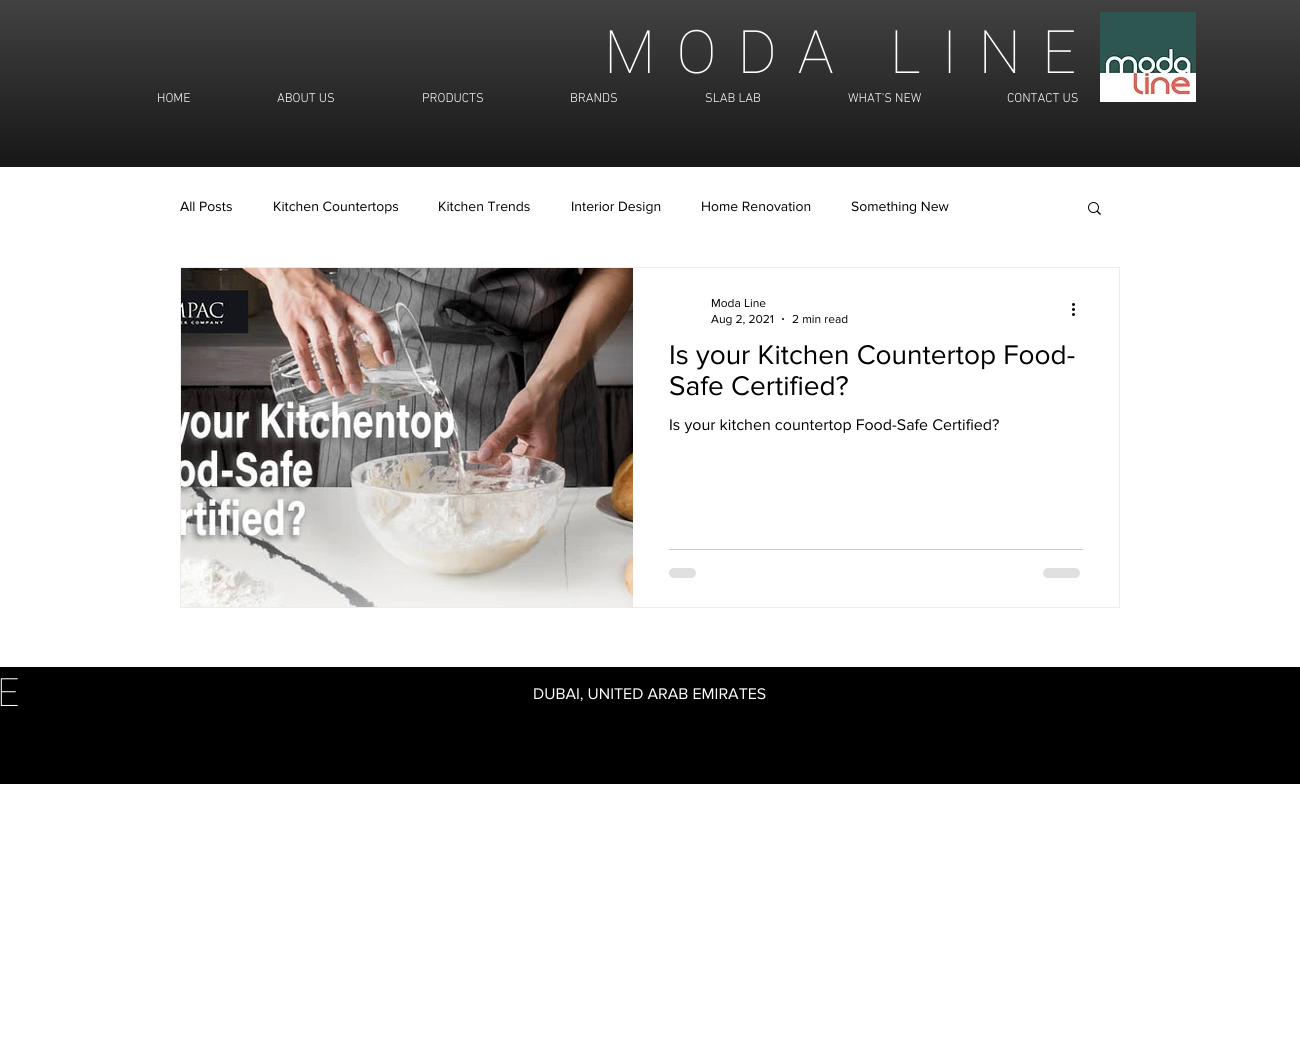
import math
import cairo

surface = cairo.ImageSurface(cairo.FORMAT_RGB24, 1300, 1062)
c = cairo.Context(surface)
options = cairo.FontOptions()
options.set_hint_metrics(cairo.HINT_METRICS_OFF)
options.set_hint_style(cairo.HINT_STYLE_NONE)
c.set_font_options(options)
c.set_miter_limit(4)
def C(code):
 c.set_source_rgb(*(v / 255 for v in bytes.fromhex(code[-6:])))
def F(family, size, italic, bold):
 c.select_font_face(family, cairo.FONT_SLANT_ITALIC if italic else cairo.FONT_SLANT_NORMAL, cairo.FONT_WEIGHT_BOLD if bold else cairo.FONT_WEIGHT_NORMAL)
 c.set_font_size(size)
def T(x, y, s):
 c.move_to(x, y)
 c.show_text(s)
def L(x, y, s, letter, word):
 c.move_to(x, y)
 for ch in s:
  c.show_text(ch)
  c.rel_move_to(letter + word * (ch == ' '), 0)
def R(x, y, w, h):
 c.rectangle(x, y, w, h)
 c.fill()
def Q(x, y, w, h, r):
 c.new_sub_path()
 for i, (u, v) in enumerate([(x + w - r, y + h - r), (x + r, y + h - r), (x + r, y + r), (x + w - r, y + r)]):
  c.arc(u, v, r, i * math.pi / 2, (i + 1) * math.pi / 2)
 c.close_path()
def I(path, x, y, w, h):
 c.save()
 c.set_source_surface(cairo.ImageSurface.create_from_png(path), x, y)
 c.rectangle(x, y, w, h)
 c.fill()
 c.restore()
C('ffffff')
c.paint()
C('000000')
R(0,0,1300,167)
I('1.png',0,0,1300,167)
F('Roboto Thin',60,0,0)
C('ffffff')
L(604,73,'MODA LINE',21,0)
I('2.png',1100,12,96,90)
F('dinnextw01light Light',13,0,0)
T(157,102,'HOME')
T(277,102,'ABOUT US')
T(422,102,'PRODUCTS')
T(570,102,'BRANDS')
T(705,102,'SLAB LAB')
T(848,102,'WHAT\'S NEW')
T(1007,102,'CONTACT US')
F('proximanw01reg',14,0,0)
C('000000')
T(180,211,'All Posts')
T(273,211,'Kitchen Countertops')
T(438,211,'Kitchen Trends')
T(571,211,'Interior Design')
T(701,211,'Home Renovation')
T(851,211,'Something New')
I('3.png',1088,202,13,13)
c.rectangle(180.5,267.5,939,340)
C('eeecec')
c.set_line_width(1)
c.stroke()
I('4.png',181,268,452,339)
F('proximanw01reg',12,0,0)
C('000000')
T(711,307,'Moda Line')
T(711,323,'Aug 2, 2021')
c.new_path()
c.arc(783,319,1,0,2 * math.pi)
c.fill()
T(792,323,'2 min read')
I('5.png',1072,303,3,13)
F('proximanw01reg',28,0,0)
T(669,364,'Is your Kitchen Countertop Food-')
T(669,395,'Safe Certified?')
F('proximanw01reg',16,0,0)
T(669,430,'Is your kitchen countertop Food-Safe Certified?')
C('cccccc')
R(669,549,414,1)
C('e0e0e0')
Q(669,568,27,10,5)
c.fill()
Q(1043,568,37,10,5)
c.fill()
C('000000')
R(0,667,1300,117)
F('Roboto Thin',39,0,0)
C('ffffff')
L(-3,706,'E',12,0)
F('proximanw01reg',16,0,0)
T(533,699,'DUBAI, UNITED ARAB EMIRATES')
surface.write_to_png('o.png')
